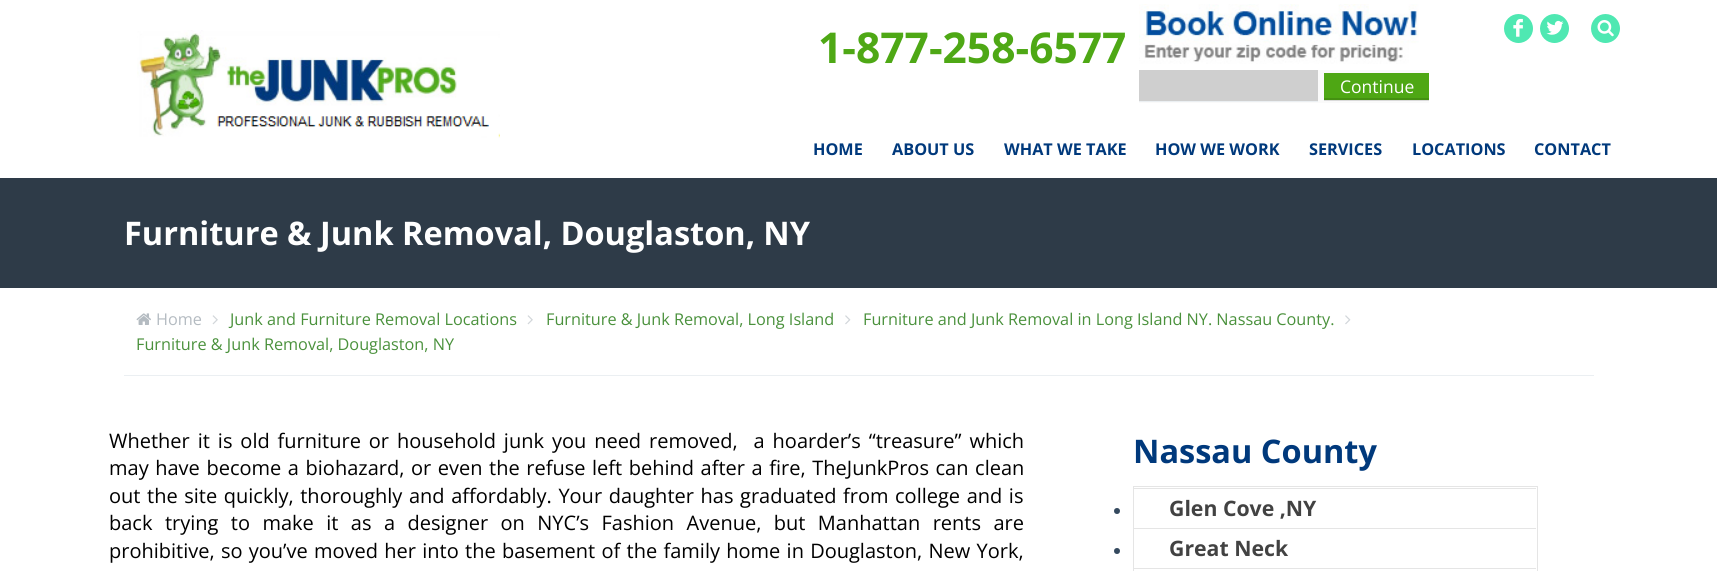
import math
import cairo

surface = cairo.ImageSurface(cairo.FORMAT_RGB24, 1717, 571)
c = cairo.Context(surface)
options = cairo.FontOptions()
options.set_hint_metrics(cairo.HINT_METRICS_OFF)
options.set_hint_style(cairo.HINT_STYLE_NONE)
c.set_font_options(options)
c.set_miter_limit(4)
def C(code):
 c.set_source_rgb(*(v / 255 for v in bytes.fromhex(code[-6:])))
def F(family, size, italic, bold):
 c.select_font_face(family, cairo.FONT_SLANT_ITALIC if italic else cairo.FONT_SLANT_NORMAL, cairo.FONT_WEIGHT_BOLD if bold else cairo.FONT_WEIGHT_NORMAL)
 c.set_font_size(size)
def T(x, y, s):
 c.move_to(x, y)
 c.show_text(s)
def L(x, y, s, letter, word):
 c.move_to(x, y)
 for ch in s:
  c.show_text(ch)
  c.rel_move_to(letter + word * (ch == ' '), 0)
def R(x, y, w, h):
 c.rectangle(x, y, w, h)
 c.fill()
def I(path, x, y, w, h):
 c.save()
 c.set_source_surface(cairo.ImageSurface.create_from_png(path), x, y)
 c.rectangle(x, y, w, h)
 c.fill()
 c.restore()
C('ffffff')
c.paint()
I('1.png',137,30,363,108)
C('4fe8b2')
c.arc(1518.5,28.5,14.5,0,2 * math.pi)
c.fill()
F('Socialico',29,0,0)
C('ffffff')
T(1512,38,'F')
C('4fe8b2')
c.new_path()
c.arc(1554.5,28.5,14.5,0,2 * math.pi)
c.fill()
C('ffffff')
T(1543,38,'L')
C('4fe8b2')
c.new_path()
c.arc(1605.5,28.5,14.5,0,2 * math.pi)
c.fill()
I('2.png',1597,20,17,17)
F('Open Sans',42.5,0,1)
C('4ea815')
T(818,63,'1-877-258-6577')
I('3.png',1139,4,280,60)
C('fafafa')
R(1139,70,290,33)
C('dadada')
R(1324,100,105,1)
C('cfcfcf')
R(1139,70,179,31)
C('ebeff2')
R(1139,101,179,1)
C('4ea714')
R(1324,73,105,25)
C('449111')
R(1324,98,105,2)
F('Open Sans',17.5,0,0)
C('ffffff')
T(1340,93,'Continue')
F('Open Sans',16.25,0,1)
C('00397c')
T(813,155,'HOME')
T(892,155,'ABOUT US')
T(1004,155,'WHAT WE TAKE')
T(1155,155,'HOW WE WORK')
T(1309,155,'SERVICES')
T(1412,155,'LOCATIONS')
T(1534,155,'CONTACT')
C('2e3b48')
R(0,178,1717,110)
F('Open Sans',32.5,0,1)
C('ffffff')
T(124,245,'Furniture & Junk Removal, Douglaston, NY')
C('ebeff2')
R(124,375,1470,1)
I('4.png',136,313,15,12)
F('Open Sans',16.25,0,0)
C('b4bbc1')
T(156,325,'Home')
I('5.png',212,315,6,10)
C('4a913c')
T(230,325,'Junk and Furniture Removal Locations')
I('5.png',527,315,6,10)
T(546,325,'Furniture & Junk Removal, Long Island')
I('6.png',845,315,6,10)
T(863,325,'Furniture and Junk Removal in Long Island NY. Nassau County.')
I('6.png',1345,315,6,10)
T(136,350,'Furniture & Junk Removal, Douglaston, NY')
F('Open Sans',20,0,0)
C('000000')
L(109,448,'Whether it is old furniture or household junk you need removed,  a hoarder’s “treasure” which',0,2.75)
L(109,475,'may have become a biohazard, or even the refuse left behind after a fire, TheJunkPros can clean',0,1.4)
L(109,503,'out the site quickly, thoroughly and affordably. Your daughter has graduated from college and is',0,1.4)
L(109,530,'back trying to make it as a designer on NYC’s Fashion Avenue, but Manhattan rents are',0,7.25)
L(109,558,'prohibitive, so you’ve moved her into the basement of the family home in Douglaston, New York,',0,1.1)
F('Open Sans',32.5,0,1)
C('00397c')
T(1133,463,'Nassau County')
c.rectangle(1133.5,486.5,404,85)
C('e5e5e5')
c.set_line_width(1)
c.stroke()
C('34495e')
c.arc(1117,511,3,0,2 * math.pi)
c.fill()
C('e5e5e5')
R(1134,488,402,1)
F('Open Sans',21.25,0,1)
C('424242')
T(1169,516,'Glen Cove ,NY')
C('34495e')
c.new_path()
c.arc(1117,551,3,0,2 * math.pi)
c.fill()
C('e5e5e5')
R(1134,528,402,1)
C('424242')
T(1169,556,'Great Neck')
C('e5e5e5')
R(1134,568,402,1)
surface.write_to_png('o.png')
